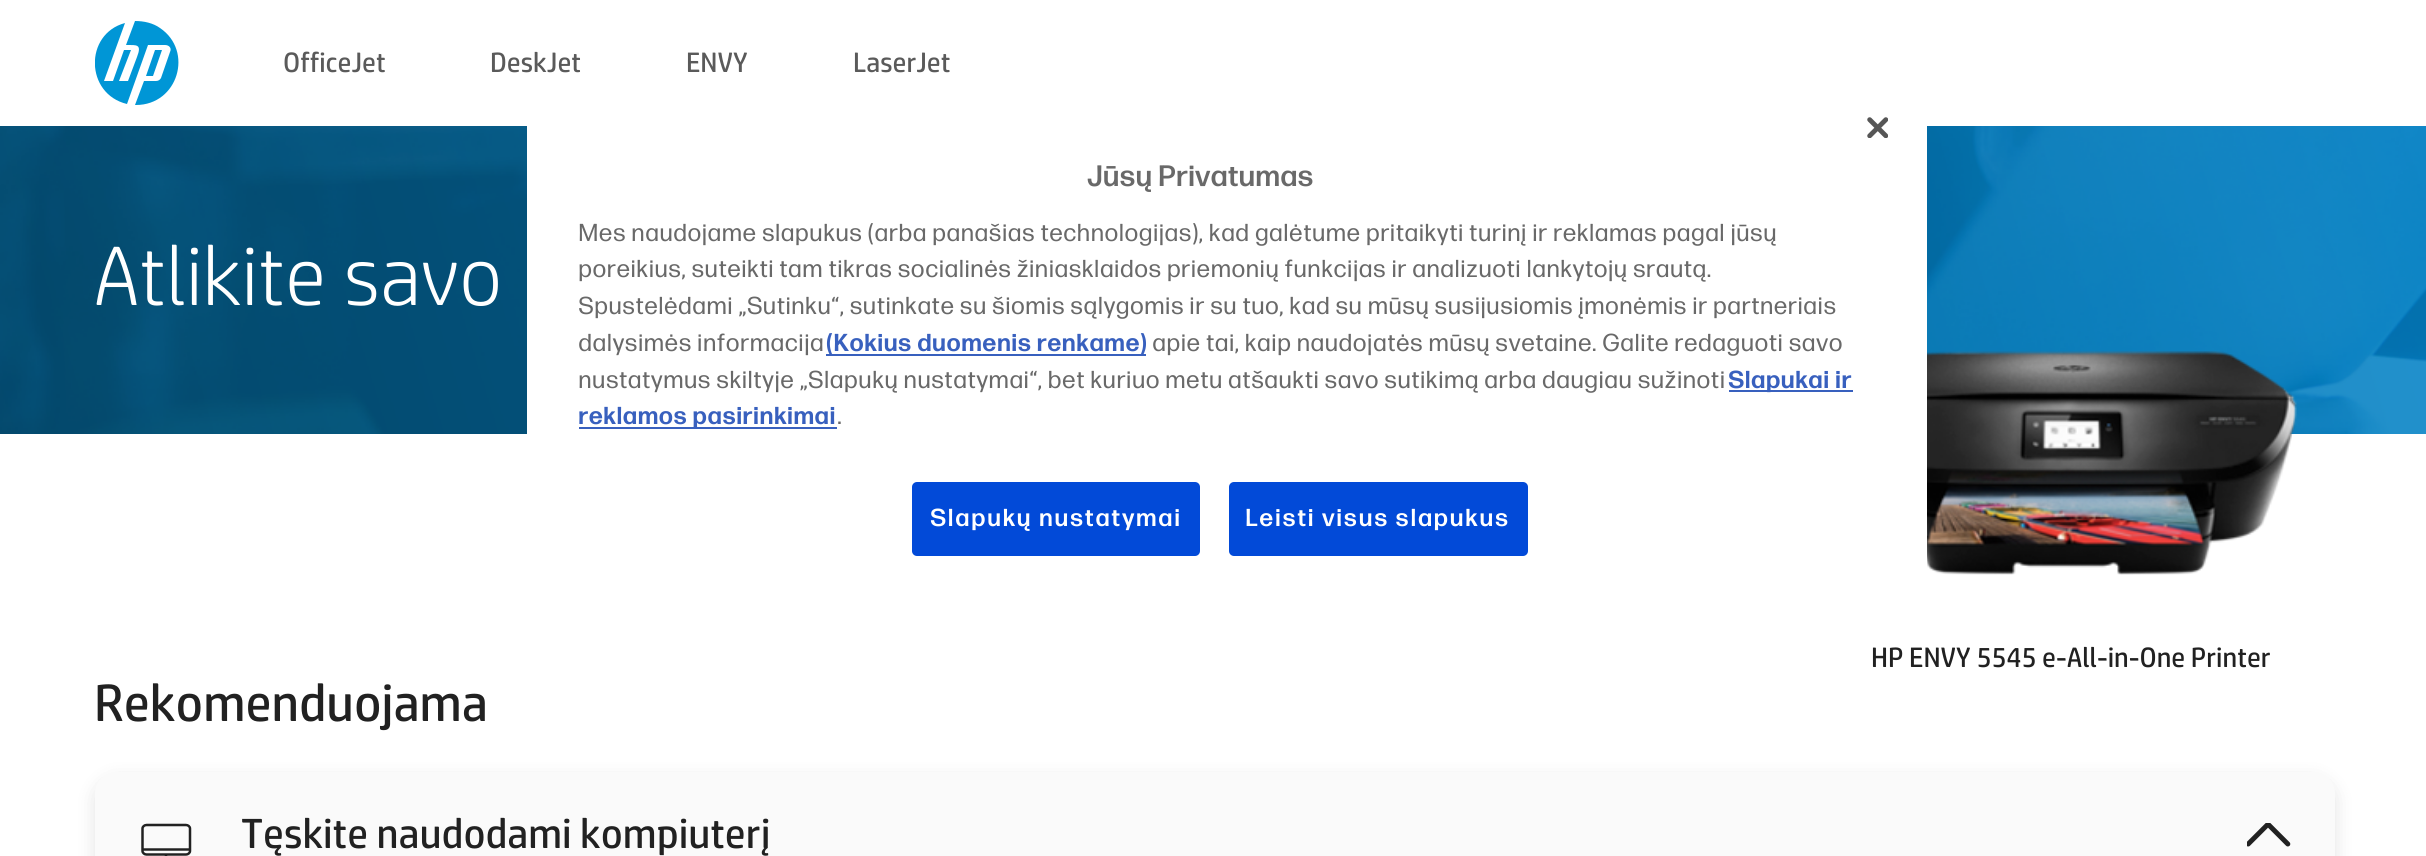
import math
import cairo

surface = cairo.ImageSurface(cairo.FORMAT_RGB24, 2426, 856)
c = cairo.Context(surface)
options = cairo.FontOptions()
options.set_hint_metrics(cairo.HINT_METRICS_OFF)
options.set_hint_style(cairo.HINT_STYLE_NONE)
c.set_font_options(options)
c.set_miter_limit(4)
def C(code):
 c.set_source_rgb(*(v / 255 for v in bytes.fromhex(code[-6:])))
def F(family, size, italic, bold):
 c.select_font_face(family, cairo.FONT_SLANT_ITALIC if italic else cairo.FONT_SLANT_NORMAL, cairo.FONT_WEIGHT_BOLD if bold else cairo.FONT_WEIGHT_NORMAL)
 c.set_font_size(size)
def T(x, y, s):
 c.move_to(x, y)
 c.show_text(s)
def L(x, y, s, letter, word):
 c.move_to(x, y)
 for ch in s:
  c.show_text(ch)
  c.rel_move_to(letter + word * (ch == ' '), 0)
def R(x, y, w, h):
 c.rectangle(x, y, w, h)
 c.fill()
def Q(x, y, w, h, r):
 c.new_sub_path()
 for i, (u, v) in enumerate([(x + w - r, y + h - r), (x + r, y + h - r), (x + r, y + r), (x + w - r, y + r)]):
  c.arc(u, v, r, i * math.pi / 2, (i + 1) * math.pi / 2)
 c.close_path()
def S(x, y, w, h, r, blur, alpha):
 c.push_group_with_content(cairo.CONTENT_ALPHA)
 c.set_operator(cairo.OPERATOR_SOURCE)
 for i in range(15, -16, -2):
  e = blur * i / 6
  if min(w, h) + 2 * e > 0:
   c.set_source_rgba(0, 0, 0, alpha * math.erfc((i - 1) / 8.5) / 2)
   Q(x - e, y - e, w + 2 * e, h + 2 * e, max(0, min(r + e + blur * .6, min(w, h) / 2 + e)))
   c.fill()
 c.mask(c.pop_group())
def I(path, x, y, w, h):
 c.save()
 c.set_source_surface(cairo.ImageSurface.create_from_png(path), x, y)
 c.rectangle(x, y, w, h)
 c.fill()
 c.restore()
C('ffffff')
c.paint()
c.save()
c.rectangle(95,21,84,84)
c.clip()
C('0096d6')
c.new_path()
c.move_to(136,105)
c.line_to(135,105)
c.line_to(144,81)
c.line_to(156,81)
c.curve_to(158,81,160,80,161,78)
c.line_to(170,52)
c.curve_to(172,48,169,45,165,45)
c.line_to(148,45)
c.line_to(127,104)
c.curve_to(85,94,84,34,125,23)
c.line_to(104,81)
c.line_to(113,81)
c.line_to(124,50)
c.line_to(131,50)
c.line_to(119,81)
c.line_to(128,81)
c.line_to(137,57)
c.curve_to(142,44,137,45,126,45)
c.line_to(135,21)
c.curve_to(144,21,153,23,160,28)
c.curve_to(194,51,178,105,136,105)
c.close_path()
c.move_to(162,50)
c.line_to(155,50)
c.line_to(146,76)
c.line_to(153,76)
c.close_path()
c.fill()
c.restore()
F('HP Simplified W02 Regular',28,0,0)
C('5a5a5a')
T(283,72,'OfficeJet')
T(490,72,'DeskJet')
T(686,72,'ENVY')
T(853,72,'LaserJet')
I('2.png',0,126,2426,308)
C('ffffff')
Q(527,86,1400,527,4)
c.fill()
I('1.png',1867,117,21,21)
F('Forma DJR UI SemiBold',29.5,0,0)
C('696969')
T(1087,186,'Jūsų Privatumas')
F('Forma DJR UI',24.5,0,0)
T(578,241,'Mes naudojame slapukus (arba panašias technologijas), kad galėtume pritaikyti turinį ir reklamas pagal jūsų')
T(578,277,'poreikius, suteikti tam tikras socialinės žiniasklaidos priemonių funkcijas ir analizuoti lankytojų srautą.')
T(578,314,'Spustelėdami „Sutinku“, sutinkate su šiomis sąlygomis ir su tuo, kad su mūsų susijusiomis įmonėmis ir partneriais')
T(578,351,'dalysimės informacija')
C('3860be')
R(826,354,320,2)
F('Forma DJR UI',24.5,0,1)
T(826,351,'(Kokius duomenis renkame)')
F('Forma DJR UI',24.5,0,0)
C('696969')
T(1152,351,'apie tai, kaip naudojatės mūsų svetaine. Galite redaguoti savo')
T(578,388,'nustatymus skiltyje „Slapukų nustatymai“, bet kuriuo metu atšaukti savo sutikimą arba daugiau sužinoti')
C('3860be')
R(1729,390,124,2)
F('Forma DJR UI',24.5,0,1)
T(1728,388,'Slapukai ir')
R(579,427,258,2)
T(578,424,'reklamos pasirinkimai')
F('Forma DJR UI',24.5,0,0)
C('696969')
T(837,424,'.')
C('024ad8')
Q(911,481,290,76,6)
c.fill_preserve()
C('ffffff')
c.stroke()
F('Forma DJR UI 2 SemiBold',24.5,0,0)
L(930,526,'Slapukų nustatymai',1.25,0)
C('024ad8')
Q(1228,481,301,76,6)
c.fill_preserve()
C('ffffff')
c.stroke()
L(1245,526,'Leisti visus slapukus',1.25,0)
F('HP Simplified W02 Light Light',84,0,0)
T(94,305,'Atlikite savo')
I('3.png',1927,351,370,224)
F('HP Simplified W02 Regular',28,0,0)
C('212121')
T(1871,667,'HP ENVY 5545 e-All-in-One Printer')
F('HP Simplified W02 Regular',52.5,0,0)
T(94,721,'Rekomenduojama')
C('000000')
S(95,779,2240,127,21,9.5,.11)
C('fafafa')
Q(95,772,2240,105,21)
c.fill()
c.new_path()
c.move_to(142.5,849.5)
c.line_to(190,849.5)
c.move_to(166,854.5)
c.line_to(166,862)
c.move_to(159,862)
c.line_to(173.5,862)
c.move_to(142.5,851)
c.line_to(142.5,828.5)
c.curve_to(142.5,826.5,144.5,825,146.5,825)
c.line_to(186,825)
c.curve_to(188,825,190,826.5,190,828.5)
c.line_to(190,851)
c.curve_to(190,853,188,854.5,186,854.5)
c.line_to(146.5,854.5)
c.curve_to(144.5,854.5,142.5,853,142.5,851)
c.close_path()
C('212121')
c.set_line_width(2.5)
c.set_line_cap(cairo.LINE_CAP_ROUND)
c.set_line_join(cairo.LINE_JOIN_ROUND)
c.stroke()
F('HP Simplified W02 Regular',42,0,0)
T(241,848,'Tęskite naudodami kompiuterį')
I('4.png',2247,823,44,24)
surface.write_to_png('o.png')
